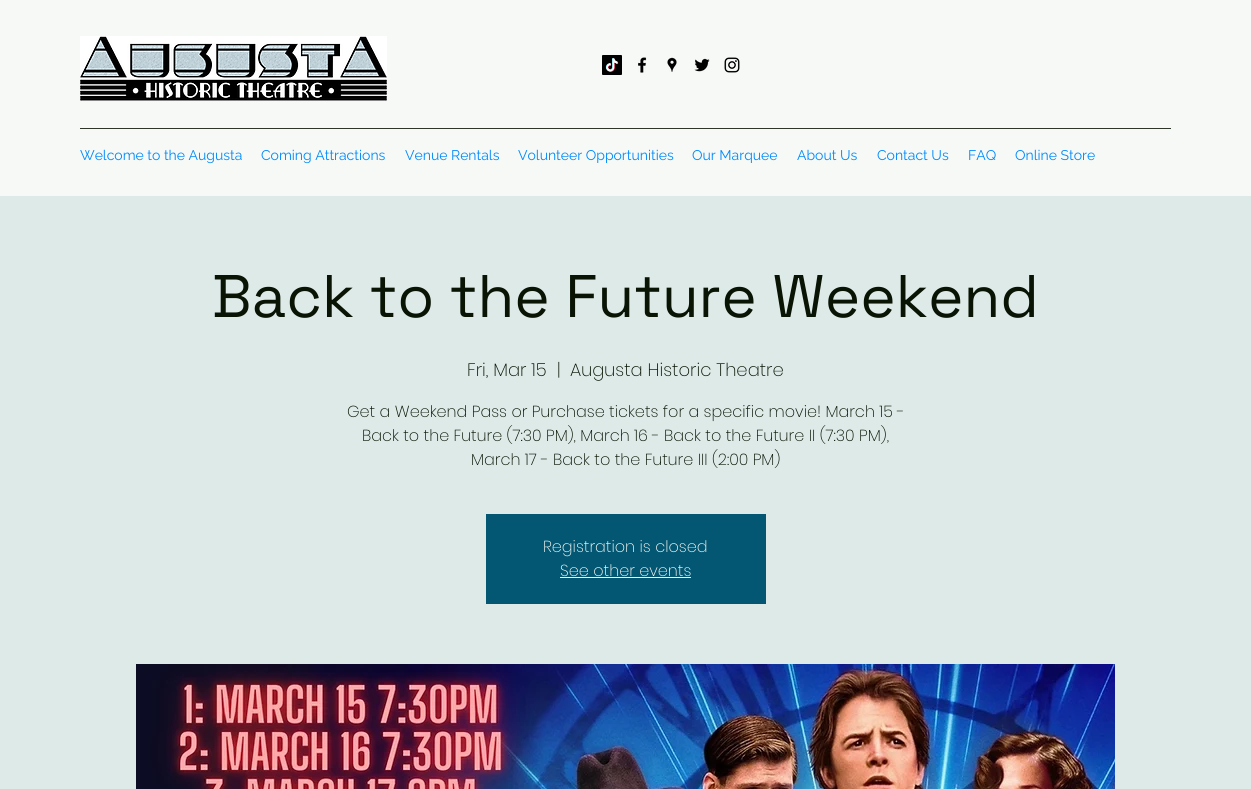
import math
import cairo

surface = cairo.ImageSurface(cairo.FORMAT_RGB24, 1251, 789)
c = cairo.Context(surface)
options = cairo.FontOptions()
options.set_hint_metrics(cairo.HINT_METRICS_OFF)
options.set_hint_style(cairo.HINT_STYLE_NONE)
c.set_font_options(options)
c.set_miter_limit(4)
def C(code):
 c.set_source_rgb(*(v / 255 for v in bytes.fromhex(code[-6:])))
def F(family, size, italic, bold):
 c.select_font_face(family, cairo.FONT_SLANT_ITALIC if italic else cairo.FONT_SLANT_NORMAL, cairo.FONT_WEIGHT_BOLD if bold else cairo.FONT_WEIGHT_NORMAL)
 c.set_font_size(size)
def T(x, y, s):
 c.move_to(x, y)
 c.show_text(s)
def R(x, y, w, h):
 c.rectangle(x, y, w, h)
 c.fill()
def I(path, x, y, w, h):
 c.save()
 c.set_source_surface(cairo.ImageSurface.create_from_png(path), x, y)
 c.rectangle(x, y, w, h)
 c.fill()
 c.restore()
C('f6f9f5')
c.paint()
I('1.png',80,36,307,65)
I('2.png',602,55,20,20)
I('3.png',638,57,9,16)
I('4.png',667,57,10,15)
I('5.png',694,58,16,14)
I('6.png',724,57,16,16)
C('2d3629')
R(80,128,1091,1)
F('Raleway',14,0,0)
C('008afc')
T(80,160,'Welcome to the Augusta')
T(261,160,'Coming Attractions')
T(405,160,'Venue Rentals')
T(518,160,'Volunteer Opportunities')
T(692,160,'Our Marquee')
T(797,160,'About Us')
T(877,160,'Contact Us')
T(968,160,'FAQ')
T(1015,160,'Online Store')
C('ddeae7')
R(0,196,1251,593)
F('Space Grotesk',60,0,0)
C('091405')
T(212,317,'Back to the Future Weekend')
F('Poppins ExtraLight',18,0,0)
T(467,376,'Fri, Mar 15')
T(557,376,'|')
T(570,376,'Augusta Historic Theatre')
F('Poppins ExtraLight',16,0,0)
T(347,417,'Get a Weekend Pass or Purchase tickets for a specific movie! March 15 -')
T(362,441,'Back to the Future (7:30 PM), March 16 - Back to the Future II (7:30 PM),')
T(471,465,'March 17 - Back to the Future III (2:00 PM)')
C('035772')
R(486,514,280,90)
C('f6f9f5')
T(543,552,'Registration is closed')
T(560,576,'See other events')
R(560,577,131,1)
I('7.png',136,664,979,125)
surface.write_to_png('o.png')
